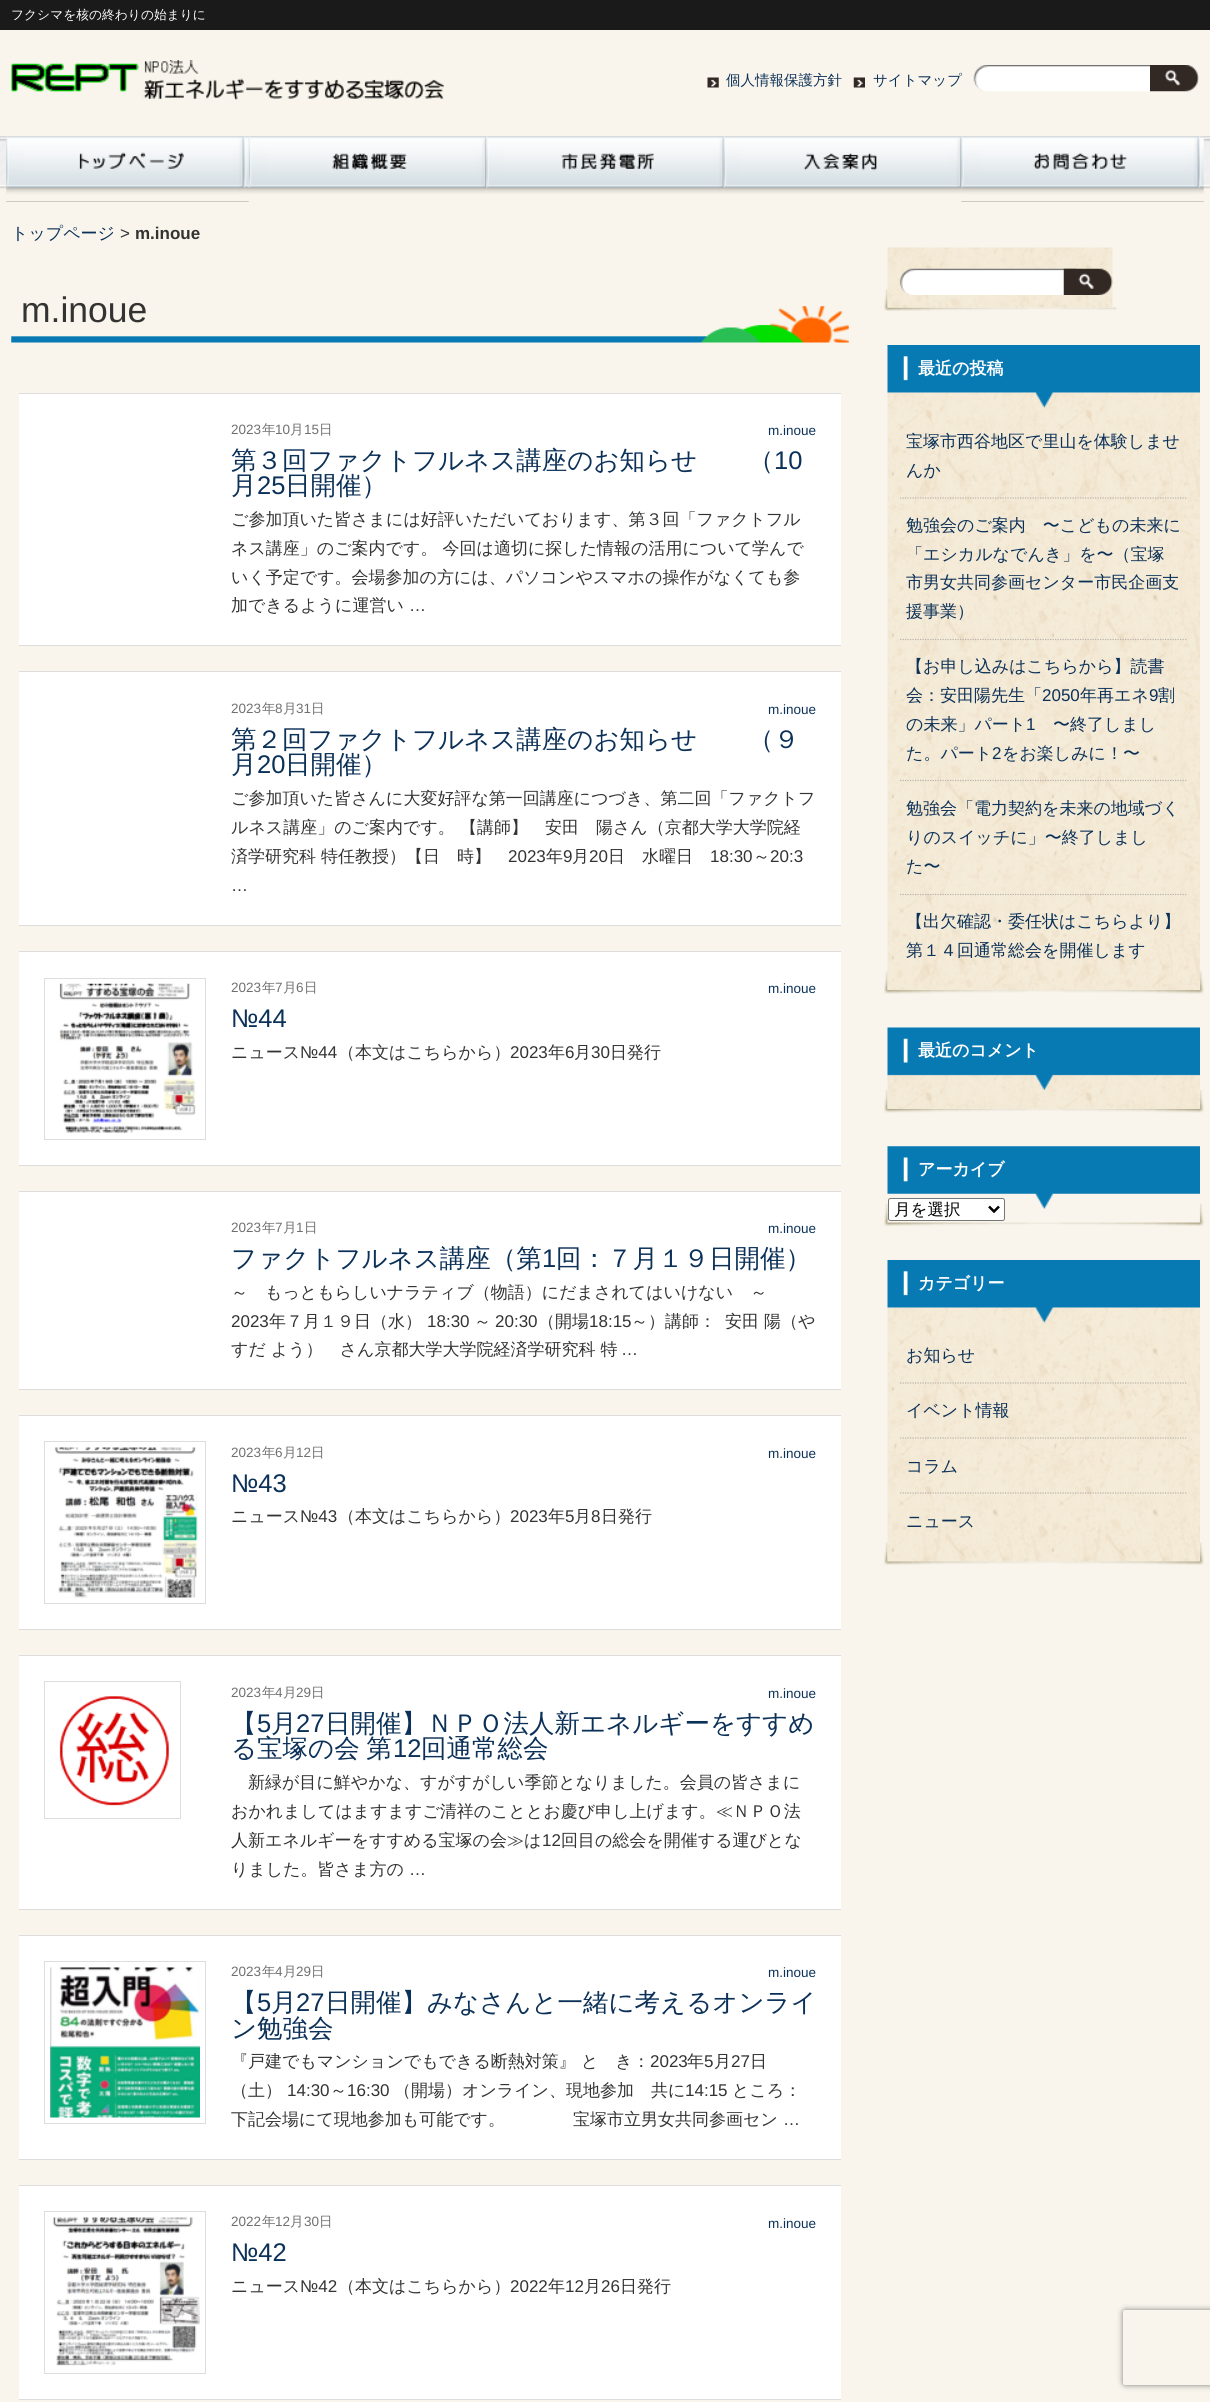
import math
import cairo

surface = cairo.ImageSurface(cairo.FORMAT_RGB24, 1210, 2402)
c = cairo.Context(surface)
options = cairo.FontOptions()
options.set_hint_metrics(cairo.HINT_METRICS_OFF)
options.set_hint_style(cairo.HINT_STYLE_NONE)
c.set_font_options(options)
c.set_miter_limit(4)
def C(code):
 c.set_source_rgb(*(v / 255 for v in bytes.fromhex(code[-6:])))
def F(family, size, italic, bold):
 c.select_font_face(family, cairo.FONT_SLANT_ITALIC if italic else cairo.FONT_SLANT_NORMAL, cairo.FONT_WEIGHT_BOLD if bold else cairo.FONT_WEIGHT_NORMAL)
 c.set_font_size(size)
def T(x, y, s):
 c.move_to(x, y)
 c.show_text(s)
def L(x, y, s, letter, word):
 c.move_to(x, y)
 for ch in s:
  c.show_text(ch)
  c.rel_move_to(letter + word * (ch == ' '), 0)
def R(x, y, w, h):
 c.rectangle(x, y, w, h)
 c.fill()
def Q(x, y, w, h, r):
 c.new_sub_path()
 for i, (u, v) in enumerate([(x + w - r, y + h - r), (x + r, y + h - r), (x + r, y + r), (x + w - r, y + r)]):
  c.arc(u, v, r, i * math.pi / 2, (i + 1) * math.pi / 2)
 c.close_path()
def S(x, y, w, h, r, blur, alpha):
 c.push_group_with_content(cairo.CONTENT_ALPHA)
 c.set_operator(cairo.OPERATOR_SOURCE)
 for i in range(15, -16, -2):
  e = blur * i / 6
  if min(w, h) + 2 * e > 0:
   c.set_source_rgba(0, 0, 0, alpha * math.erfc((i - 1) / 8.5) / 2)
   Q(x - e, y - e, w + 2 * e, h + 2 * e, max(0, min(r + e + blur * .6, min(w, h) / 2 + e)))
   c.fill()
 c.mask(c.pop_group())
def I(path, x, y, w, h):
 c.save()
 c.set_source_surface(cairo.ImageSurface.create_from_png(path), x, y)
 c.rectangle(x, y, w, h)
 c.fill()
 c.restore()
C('f9f5ec')
c.paint()
I('1.png',0,136,1210,53)
C('1a1a1a')
R(0,0,1210,30)
F('WenQuanYi Zen Hei Medium',12.75,0,0)
C('ffffff')
T(11,19,'フクシマを核の終わりの始まりに')
I('2.png',11,60,433,40)
I('3.png',707,77,12,11)
F('WenQuanYi Zen Hei Medium',14.5,0,0)
C('0c3158')
T(726,85,'個人情報保護方針')
I('4.png',853,77,12,11)
T(873,85,'サイトマップ')
I('5.png',973,65,177,27)
I('6.png',1150,65,49,27)
I('7.png',6,136,243,66)
I('8.png',248,136,239,58)
I('9.png',486,136,238,58)
I('10.png',723,136,239,58)
I('11.png',961,136,243,66)
F('WenQuanYi Zen Hei Medium',17,0,0)
T(11,239,'トップページ')
F('Liberation Sans',17,0,0)
C('333333')
T(120,239,'>')
F('Liberation Sans',17,0,1)
T(135,239,'m.inoue')
I('12.png',11,306,838,37)
F('Liberation Sans',35.5,0,0)
T(21,322,'m.inoue')
C('ffffff')
R(19,394,822,251)
C('dddddd')
R(19,393,822,1)
R(19,645,822,1)
F('Liberation Sans',13.5,0,0)
C('707070')
T(231,434,'2023')
F('WenQuanYi Zen Hei Medium',13.5,0,0)
T(262,434,'年')
F('Liberation Sans',13.5,0,0)
T(275,434,'10')
F('WenQuanYi Zen Hei Medium',13.5,0,0)
T(290,434,'月')
F('Liberation Sans',13.5,0,0)
T(304,434,'15')
F('WenQuanYi Zen Hei Medium',13.5,0,0)
T(319,434,'日')
F('Liberation Sans',13.5,0,0)
C('0c3158')
T(768,435,'m.inoue')
F('WenQuanYi Zen Hei Medium',25.5,0,0)
T(231,469,'第３回ファクトフルネス講座のお知らせ　　（')
F('Liberation Sans',25.5,0,0)
T(774,469,'10')
F('WenQuanYi Zen Hei Medium',25.5,0,0)
T(231,494,'月')
F('Liberation Sans',25.5,0,0)
T(257,494,'25')
F('WenQuanYi Zen Hei Medium',25.5,0,0)
T(285,494,'日開催）')
F('WenQuanYi Zen Hei Medium',17,0,0)
C('333333')
T(231,525,'ご参加頂いた皆さまには好評いただいております、第３回「ファクトフル')
T(231,554,'ネス講座」のご案内です。 今回は適切に探した情報の活用について学んで')
T(231,583,'いく予定です。会場参加の方には、パソコンやスマホの操作がなくても参')
T(231,611,'加できるように運営い')
F('Liberation Sans',17,0,0)
T(409,611,'…')
C('ffffff')
R(19,672,822,253)
C('dddddd')
R(19,671,822,1)
R(19,925,822,1)
F('Liberation Sans',13.5,0,0)
C('707070')
T(231,713,'2023')
F('WenQuanYi Zen Hei Medium',13.5,0,0)
T(262,713,'年')
F('Liberation Sans',13.5,0,0)
T(275,713,'8')
F('WenQuanYi Zen Hei Medium',13.5,0,0)
T(283,713,'月')
F('Liberation Sans',13.5,0,0)
T(296,713,'31')
F('WenQuanYi Zen Hei Medium',13.5,0,0)
T(311,713,'日')
F('Liberation Sans',13.5,0,0)
C('0c3158')
T(768,714,'m.inoue')
F('WenQuanYi Zen Hei Medium',25.5,0,0)
T(231,748,'第２回ファクトフルネス講座のお知らせ　　（９')
T(231,773,'月')
F('Liberation Sans',25.5,0,0)
T(257,773,'20')
F('WenQuanYi Zen Hei Medium',25.5,0,0)
T(285,773,'日開催）')
F('WenQuanYi Zen Hei Medium',17,0,0)
C('333333')
T(231,804,'ご参加頂いた皆さんに大変好評な第一回講座につづき、第二回「ファクトフ')
T(231,833,'ルネス講座」のご案内です。 【講師】　安田　陽さん（京都大学大学院経')
T(231,862,'済学研究科 特任教授）【日　時】')
F('Liberation Sans',17,0,0)
T(508,862,'2023')
F('WenQuanYi Zen Hei Medium',17,0,0)
T(546,862,'年')
F('Liberation Sans',17,0,0)
T(563,862,'9')
F('WenQuanYi Zen Hei Medium',17,0,0)
T(572,862,'月')
F('Liberation Sans',17,0,0)
T(589,862,'20')
F('WenQuanYi Zen Hei Medium',17,0,0)
T(608,862,'日　水曜日')
F('Liberation Sans',17,0,0)
T(710,862,'18:30')
F('WenQuanYi Zen Hei Medium',17,0,0)
T(753,862,'～')
F('Liberation Sans',17,0,0)
T(770,862,'20:3')
T(231,891,'…')
C('ffffff')
R(19,952,822,213)
C('dddddd')
R(19,951,822,1)
R(19,1165,822,1)
c.rectangle(44.5,978.5,161,161)
c.set_line_width(1)
c.stroke()
I('13.png',59,983,137,151)
F('Liberation Sans',13.5,0,0)
C('707070')
T(231,992,'2023')
F('WenQuanYi Zen Hei Medium',13.5,0,0)
T(262,992,'年')
F('Liberation Sans',13.5,0,0)
T(275,992,'7')
F('WenQuanYi Zen Hei Medium',13.5,0,0)
T(283,992,'月')
F('Liberation Sans',13.5,0,0)
T(296,992,'6')
F('WenQuanYi Zen Hei Medium',13.5,0,0)
T(304,992,'日')
F('Liberation Sans',13.5,0,0)
C('0c3158')
T(768,993,'m.inoue')
F('Liberation Sans',25.5,0,0)
T(231,1027,'№44')
F('WenQuanYi Zen Hei Medium',17,0,0)
C('333333')
T(231,1058,'ニュース')
F('Liberation Sans',17,0,0)
T(300,1058,'№44')
F('WenQuanYi Zen Hei Medium',17,0,0)
T(338,1058,'（本文はこちらから）')
F('Liberation Sans',17,0,0)
T(510,1058,'2023')
F('WenQuanYi Zen Hei Medium',17,0,0)
T(548,1058,'年')
F('Liberation Sans',17,0,0)
T(565,1058,'6')
F('WenQuanYi Zen Hei Medium',17,0,0)
T(574,1058,'月')
F('Liberation Sans',17,0,0)
T(591,1058,'30')
F('WenQuanYi Zen Hei Medium',17,0,0)
T(610,1058,'日発行')
C('ffffff')
R(19,1192,822,197)
C('dddddd')
R(19,1191,822,1)
R(19,1389,822,1)
F('Liberation Sans',13.5,0,0)
C('707070')
T(231,1232,'2023')
F('WenQuanYi Zen Hei Medium',13.5,0,0)
T(262,1232,'年')
F('Liberation Sans',13.5,0,0)
T(275,1232,'7')
F('WenQuanYi Zen Hei Medium',13.5,0,0)
T(283,1232,'月')
F('Liberation Sans',13.5,0,0)
T(296,1232,'1')
F('WenQuanYi Zen Hei Medium',13.5,0,0)
T(304,1232,'日')
F('Liberation Sans',13.5,0,0)
C('0c3158')
T(768,1233,'m.inoue')
F('WenQuanYi Zen Hei Medium',25.5,0,0)
T(231,1267,'ファクトフルネス講座（第')
F('Liberation Sans',25.5,0,0)
T(542,1267,'1')
F('WenQuanYi Zen Hei Medium',25.5,0,0)
T(556,1267,'回：７月１９日開催）')
F('WenQuanYi Zen Hei Medium',17,0,0)
C('333333')
T(231,1298,'～　もっともらしいナラティブ（物語）にだまされてはいけない　～')
F('Liberation Sans',17,0,0)
T(231,1327,'2023')
F('WenQuanYi Zen Hei Medium',17,0,0)
T(269,1327,'年７月１９日（水）')
F('Liberation Sans',17,0,0)
T(427,1327,'18:30')
F('WenQuanYi Zen Hei Medium',17,0,0)
T(474,1327,'～')
F('Liberation Sans',17,0,0)
T(495,1327,'20:30')
F('WenQuanYi Zen Hei Medium',17,0,0)
T(538,1327,'（開場')
F('Liberation Sans',17,0,0)
T(589,1327,'18:15')
F('WenQuanYi Zen Hei Medium',17,0,0)
T(631,1327,'～）講師：')
T(725,1327,'安田 陽（や')
T(231,1355,'すだ よう）　さん京都大学大学院経済学研究科 特')
F('Liberation Sans',17,0,0)
T(621,1355,'…')
C('ffffff')
R(19,1416,822,213)
C('dddddd')
R(19,1415,822,1)
R(19,1629,822,1)
c.rectangle(44.5,1441.5,161,162)
c.stroke()
I('14.png',54,1447,144,151)
F('Liberation Sans',13.5,0,0)
C('707070')
T(231,1457,'2023')
F('WenQuanYi Zen Hei Medium',13.5,0,0)
T(262,1457,'年')
F('Liberation Sans',13.5,0,0)
T(275,1457,'6')
F('WenQuanYi Zen Hei Medium',13.5,0,0)
T(283,1457,'月')
F('Liberation Sans',13.5,0,0)
T(296,1457,'12')
F('WenQuanYi Zen Hei Medium',13.5,0,0)
T(311,1457,'日')
F('Liberation Sans',13.5,0,0)
C('0c3158')
T(768,1458,'m.inoue')
F('Liberation Sans',25.5,0,0)
T(231,1492,'№43')
F('WenQuanYi Zen Hei Medium',17,0,0)
C('333333')
T(231,1522,'ニュース')
F('Liberation Sans',17,0,0)
T(300,1522,'№43')
F('WenQuanYi Zen Hei Medium',17,0,0)
T(338,1522,'（本文はこちらから）')
F('Liberation Sans',17,0,0)
T(510,1522,'2023')
F('WenQuanYi Zen Hei Medium',17,0,0)
T(548,1522,'年')
F('Liberation Sans',17,0,0)
T(565,1522,'5')
F('WenQuanYi Zen Hei Medium',17,0,0)
T(574,1522,'月')
F('Liberation Sans',17,0,0)
T(591,1522,'8')
F('WenQuanYi Zen Hei Medium',17,0,0)
T(601,1522,'日発行')
C('ffffff')
R(19,1656,822,253)
C('dddddd')
R(19,1655,822,1)
R(19,1909,822,1)
c.rectangle(44.5,1681.5,136,137)
c.stroke()
I('15.png',59,1696,110,110)
F('Liberation Sans',13.5,0,0)
C('707070')
T(231,1697,'2023')
F('WenQuanYi Zen Hei Medium',13.5,0,0)
T(262,1697,'年')
F('Liberation Sans',13.5,0,0)
T(275,1697,'4')
F('WenQuanYi Zen Hei Medium',13.5,0,0)
T(283,1697,'月')
F('Liberation Sans',13.5,0,0)
T(296,1697,'29')
F('WenQuanYi Zen Hei Medium',13.5,0,0)
T(311,1697,'日')
F('Liberation Sans',13.5,0,0)
C('0c3158')
T(768,1698,'m.inoue')
F('WenQuanYi Zen Hei Medium',25.5,0,0)
T(231,1732,'【')
F('Liberation Sans',25.5,0,0)
T(257,1732,'5')
F('WenQuanYi Zen Hei Medium',25.5,0,0)
T(271,1732,'月')
F('Liberation Sans',25.5,0,0)
T(296,1732,'27')
F('WenQuanYi Zen Hei Medium',25.5,0,0)
T(325,1732,'日開催】ＮＰＯ法人新エネルギーをすすめ')
L(231,1757,'る宝塚の会 第',0,-1)
F('Liberation Sans',25.5,0,0)
T(393,1757,'12')
F('WenQuanYi Zen Hei Medium',25.5,0,0)
T(421,1757,'回通常総会')
F('WenQuanYi Zen Hei Medium',17,0,0)
C('333333')
T(248,1788,'新緑が目に鮮やかな、すがすがしい季節となりました。会員の皆さまに')
T(231,1817,'おかれましてはますますご清祥のこととお慶び申し上げます。≪ＮＰＯ法')
T(231,1846,'人新エネルギーをすすめる宝塚の会≫は')
F('Liberation Sans',17,0,0)
T(542,1846,'12')
F('WenQuanYi Zen Hei Medium',17,0,0)
T(561,1846,'回目の総会を開催する運びとな')
T(231,1875,'りました。皆さま方の')
F('Liberation Sans',17,0,0)
T(409,1875,'…')
C('ffffff')
R(19,1936,822,223)
C('dddddd')
R(19,1935,822,1)
R(19,2159,822,1)
c.rectangle(44.5,1961.5,161,162)
c.stroke()
I('16.png',50,1967,150,151)
F('Liberation Sans',13.5,0,0)
C('707070')
T(231,1976,'2023')
F('WenQuanYi Zen Hei Medium',13.5,0,0)
T(262,1976,'年')
F('Liberation Sans',13.5,0,0)
T(275,1976,'4')
F('WenQuanYi Zen Hei Medium',13.5,0,0)
T(283,1976,'月')
F('Liberation Sans',13.5,0,0)
T(296,1976,'29')
F('WenQuanYi Zen Hei Medium',13.5,0,0)
T(311,1976,'日')
F('Liberation Sans',13.5,0,0)
C('0c3158')
T(768,1977,'m.inoue')
F('WenQuanYi Zen Hei Medium',25.5,0,0)
T(231,2011,'【')
F('Liberation Sans',25.5,0,0)
T(257,2011,'5')
F('WenQuanYi Zen Hei Medium',25.5,0,0)
T(271,2011,'月')
F('Liberation Sans',25.5,0,0)
T(296,2011,'27')
F('WenQuanYi Zen Hei Medium',25.5,0,0)
T(325,2011,'日開催】みなさんと一緒に考えるオンライ')
T(231,2037,'ン勉強会')
F('WenQuanYi Zen Hei Medium',17,0,0)
C('333333')
T(231,2067,'『戸建でもマンションでもできる断熱対策』 と　き：')
F('Liberation Sans',17,0,0)
T(650,2067,'2023')
F('WenQuanYi Zen Hei Medium',17,0,0)
T(687,2067,'年')
F('Liberation Sans',17,0,0)
T(704,2067,'5')
F('WenQuanYi Zen Hei Medium',17,0,0)
T(714,2067,'月')
F('Liberation Sans',17,0,0)
T(731,2067,'27')
F('WenQuanYi Zen Hei Medium',17,0,0)
T(750,2067,'日')
T(231,2096,'（土）')
F('Liberation Sans',17,0,0)
T(287,2096,'14:30')
F('WenQuanYi Zen Hei Medium',17,0,0)
T(330,2096,'～')
F('Liberation Sans',17,0,0)
T(347,2096,'16:30')
F('WenQuanYi Zen Hei Medium',17,0,0)
T(394,2096,'（開場）オンライン、現地参加　共に')
F('Liberation Sans',17,0,0)
T(685,2096,'14:15')
F('WenQuanYi Zen Hei Medium',17,0,0)
T(732,2096,'ところ：')
T(231,2125,'下記会場にて現地参加も可能です。　　　　宝塚市立男女共同参画セン')
F('Liberation Sans',17,0,0)
T(783,2125,'…')
C('ffffff')
R(19,2186,822,213)
C('dddddd')
R(19,2185,822,1)
R(19,2399,822,1)
c.rectangle(44.5,2211.5,161,162)
c.stroke()
I('17.png',52,2217,148,149)
F('Liberation Sans',13.5,0,0)
C('707070')
T(231,2226,'2022')
F('WenQuanYi Zen Hei Medium',13.5,0,0)
T(262,2226,'年')
F('Liberation Sans',13.5,0,0)
T(275,2226,'12')
F('WenQuanYi Zen Hei Medium',13.5,0,0)
T(290,2226,'月')
F('Liberation Sans',13.5,0,0)
T(304,2226,'30')
F('WenQuanYi Zen Hei Medium',13.5,0,0)
T(319,2226,'日')
F('Liberation Sans',13.5,0,0)
C('0c3158')
T(768,2228,'m.inoue')
F('Liberation Sans',25.5,0,0)
T(231,2261,'№42')
F('WenQuanYi Zen Hei Medium',17,0,0)
C('333333')
T(231,2292,'ニュース')
F('Liberation Sans',17,0,0)
T(300,2292,'№42')
F('WenQuanYi Zen Hei Medium',17,0,0)
T(338,2292,'（本文はこちらから）')
F('Liberation Sans',17,0,0)
T(510,2292,'2022')
F('WenQuanYi Zen Hei Medium',17,0,0)
T(548,2292,'年')
F('Liberation Sans',17,0,0)
T(565,2292,'12')
F('WenQuanYi Zen Hei Medium',17,0,0)
T(584,2292,'月')
F('Liberation Sans',17,0,0)
T(601,2292,'26')
F('WenQuanYi Zen Hei Medium',17,0,0)
T(620,2292,'日発行')
I('18.png',884,289,233,22)
I('19.png',887,247,226,61)
I('20.png',900,268,177,27)
I('21.png',1063,268,50,27)
I('22.png',884,971,320,23)
I('24.png',887,392,313,598)
I('23.png',887,345,313,63)
F('WenQuanYi Zen Hei',17,0,1)
C('ffffff')
T(918,374,'最近の投稿')
F('WenQuanYi Zen Hei Medium',17,0,0)
C('0c3158')
T(906,447,'宝塚市西谷地区で里山を体験しませ')
T(906,476,'んか')
c.new_path()
c.move_to(900,498)
c.line_to(1187.5,498)
C('b9b4ab')
c.set_line_width(1.2)
c.set_dash([1.25,1.25])
c.stroke()
C('0c3158')
T(906,531,'勉強会のご案内　〜こどもの未来に')
T(906,560,'「エシカルなでんき」を〜（宝塚')
T(906,588,'市男女共同参画センター市民企画支')
T(906,617,'援事業）')
c.new_path()
c.move_to(900,639.5)
c.line_to(1187.5,639.5)
C('b9b4ab')
c.stroke()
C('0c3158')
T(906,672,'【お申し込みはこちらから】読書')
T(906,701,'会：安田陽先生「')
F('Liberation Sans',17,0,0)
T(1042,701,'2050')
F('WenQuanYi Zen Hei Medium',17,0,0)
T(1080,701,'年再エネ')
F('Liberation Sans',17,0,0)
T(1149,701,'9')
F('WenQuanYi Zen Hei Medium',17,0,0)
T(1158,701,'割')
T(906,730,'の未来」パート')
F('Liberation Sans',17,0,0)
T(1026,730,'1')
F('WenQuanYi Zen Hei Medium',17,0,0)
T(1053,730,'〜終了しまし')
T(906,759,'た。パート')
F('Liberation Sans',17,0,0)
T(992,759,'2')
F('WenQuanYi Zen Hei Medium',17,0,0)
T(1002,759,'をお楽しみに！〜')
c.new_path()
c.move_to(900,780.5)
c.line_to(1187.5,780.5)
C('b9b4ab')
c.stroke()
C('0c3158')
T(906,814,'勉強会「電力契約を未来の地域づく')
T(906,843,'りのスイッチに」〜終了しまし')
T(906,872,'た〜')
c.new_path()
c.move_to(900,894.5)
c.line_to(1187.5,894.5)
C('b9b4ab')
c.stroke()
C('0c3158')
T(906,927,'【出欠確認・委任状はこちらより】')
T(906,956,'第１４回通常総会を開催します')
I('25.png',884,1090,320,23)
I('27.png',887,1075,313,34)
I('26.png',887,1027,313,63)
F('WenQuanYi Zen Hei',17,0,1)
C('ffffff')
T(918,1056,'最近のコメント')
I('28.png',884,1203,320,23)
Q(888.5,1198.5,116,22,2)
c.fill_preserve()
C('767676')
c.set_line_width(1)
c.set_dash([])
c.stroke()
c.new_path()
c.move_to(989,1206.5)
c.line_to(994,1211.5)
c.line_to(999,1206.5)
C('000000')
c.set_line_width(2.5)
c.stroke()
F('WenQuanYi Zen Hei Medium',16.5,0,0)
T(894,1215,'月を選択')
I('29.png',887,1146,313,63)
F('WenQuanYi Zen Hei',17,0,1)
C('ffffff')
T(918,1175,'アーカイブ')
I('30.png',884,1542,320,23)
I('32.png',887,1307,313,255)
I('31.png',887,1260,313,63)
T(918,1289,'カテゴリー')
F('WenQuanYi Zen Hei Medium',17,0,0)
C('0c3158')
T(906,1361,'お知らせ')
c.new_path()
c.move_to(900,1383)
c.line_to(1187.5,1383)
C('b9b4ab')
c.set_line_width(1.2)
c.set_dash([1.25,1.25])
c.stroke()
C('0c3158')
T(906,1416,'イベント情報')
c.new_path()
c.move_to(900,1438)
c.line_to(1187.5,1438)
C('b9b4ab')
c.stroke()
C('0c3158')
T(906,1472,'コラム')
c.new_path()
c.move_to(900,1493)
c.line_to(1187.5,1493)
C('b9b4ab')
c.stroke()
C('0c3158')
T(906,1527,'ニュース')
c.save()
c.set_fill_rule(cairo.FILL_RULE_EVEN_ODD)
c.new_path()
c.move_to(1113,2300)
c.line_to(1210,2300)
c.line_to(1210,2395)
c.line_to(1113,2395)
c.close_path()
c.move_to(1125.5,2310)
c.line_to(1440.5,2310)
c.curve_to(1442,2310,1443,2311,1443,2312.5)
c.line_to(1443,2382.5)
c.curve_to(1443,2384,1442,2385,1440.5,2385)
c.line_to(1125.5,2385)
c.curve_to(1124,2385,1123,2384,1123,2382.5)
c.line_to(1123,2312.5)
c.curve_to(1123,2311,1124,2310,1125.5,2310)
c.close_path()
c.clip()
C('808080')
S(1123,2310,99,75,2.5,3,1)
c.restore()
surface.write_to_png('o.png')
